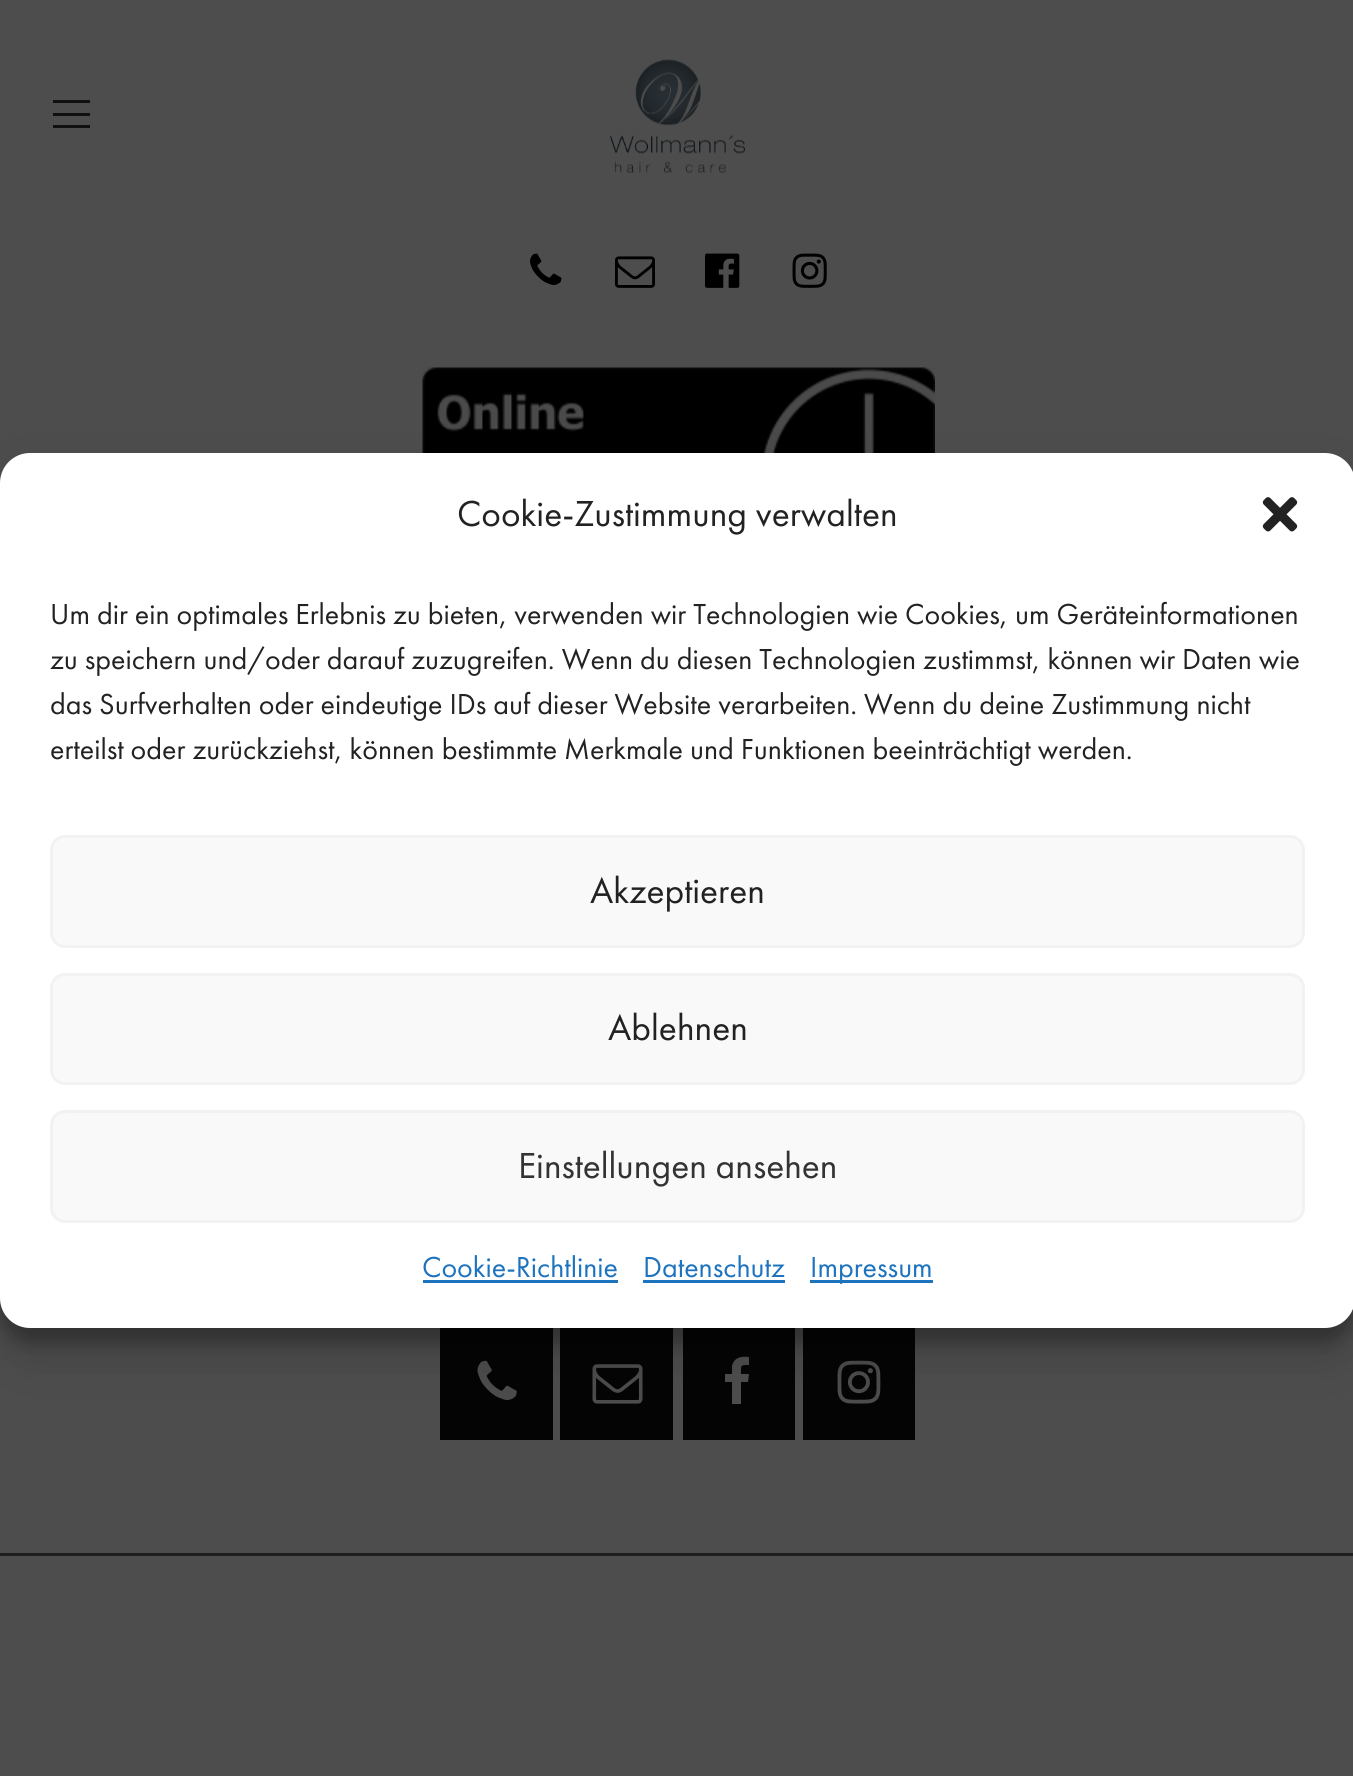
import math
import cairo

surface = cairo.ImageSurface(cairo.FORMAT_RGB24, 1353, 1776)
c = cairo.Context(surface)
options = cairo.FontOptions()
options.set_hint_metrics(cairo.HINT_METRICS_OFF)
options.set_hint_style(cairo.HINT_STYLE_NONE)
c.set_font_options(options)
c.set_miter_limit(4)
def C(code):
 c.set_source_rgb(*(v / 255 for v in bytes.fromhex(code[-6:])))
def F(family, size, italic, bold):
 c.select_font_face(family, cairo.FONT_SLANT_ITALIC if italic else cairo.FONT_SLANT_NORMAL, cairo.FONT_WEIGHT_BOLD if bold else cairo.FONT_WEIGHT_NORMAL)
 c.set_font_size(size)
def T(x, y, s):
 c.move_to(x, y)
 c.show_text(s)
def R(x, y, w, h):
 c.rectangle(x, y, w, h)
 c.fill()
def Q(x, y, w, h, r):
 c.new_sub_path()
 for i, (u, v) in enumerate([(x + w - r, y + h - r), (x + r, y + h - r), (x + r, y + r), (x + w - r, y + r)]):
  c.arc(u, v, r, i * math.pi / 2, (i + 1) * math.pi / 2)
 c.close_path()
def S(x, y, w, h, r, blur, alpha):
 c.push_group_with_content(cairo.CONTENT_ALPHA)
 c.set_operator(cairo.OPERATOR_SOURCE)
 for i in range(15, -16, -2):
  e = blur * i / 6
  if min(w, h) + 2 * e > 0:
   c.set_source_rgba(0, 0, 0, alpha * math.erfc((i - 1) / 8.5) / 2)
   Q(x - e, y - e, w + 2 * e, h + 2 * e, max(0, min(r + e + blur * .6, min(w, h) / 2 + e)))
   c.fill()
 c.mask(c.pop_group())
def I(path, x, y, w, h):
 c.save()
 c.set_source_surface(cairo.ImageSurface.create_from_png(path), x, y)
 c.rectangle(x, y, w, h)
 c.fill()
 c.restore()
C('4d4d4d')
c.paint()
C('101012')
R(53,125,37,3)
R(53,100,37,3)
R(53,113,37,3)
I('1.png',610,59,135,114)
I('2.png',530,253,32,32)
I('3.png',615,256,40,32)
I('4.png',705,253,35,35)
I('5.png',792,253,35,35)
I('6.png',422,367,513,86)
C('040405')
R(440,1328,113,112)
I('7.png',477,1360,40,40)
R(560,1328,113,112)
I('8.png',592,1364,51,40)
R(683,1328,112,112)
C('4d4d4d')
c.new_path()
c.move_to(749,1357)
c.line_to(749,1365)
c.curve_to(740,1365,741,1365,741,1374)
c.line_to(749,1374)
c.line_to(748,1382)
c.line_to(741,1382)
c.line_to(741,1404)
c.line_to(732,1404)
c.line_to(732,1382)
c.line_to(725,1382)
c.line_to(725,1374)
c.line_to(732,1374)
c.line_to(732,1366)
c.curve_to(734,1357,742,1356,749,1357)
c.close_path()
c.fill()
C('040405')
R(803,1328,112,112)
I('9.png',837,1360,44,44)
C('1e1e1e')
R(0,1553,1353,3)
C('000000')
S(0,468,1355,875,30,7.5,.23)
S(0,478,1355,875,30,25,.19)
C('ffffff')
Q(0,453,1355,875,30)
c.fill()
F('Futura PT',37.5,0,0)
C('222222')
T(457,526,'Cookie-Zustimmung verwalten')
I('10.png',1262,497,36,35)
F('Futura PT',30,0,0)
T(50,624,'Um dir ein optimales Erlebnis zu bieten, verwenden wir Technologien wie Cookies, um Geräteinformationen')
T(50,669,'zu speichern und/oder darauf zuzugreifen. Wenn du diesen Technologien zustimmst, können wir Daten wie')
T(50,714,'das Surfverhalten oder eindeutige IDs auf dieser Website verarbeiten. Wenn du deine Zustimmung nicht')
T(50,759,'erteilst oder zurückziehst, können bestimmte Merkmale und Funktionen beeinträchtigt werden.')
C('f9f9f9')
Q(51.5,836.5,1252,110,13.5)
c.fill_preserve()
C('f2f2f2')
c.set_line_width(3)
c.stroke()
F('Futura PT',37.5,0,0)
C('222222')
T(590,903,'Akzeptieren')
C('f9f9f9')
Q(51.5,974.5,1252,109,13.5)
c.fill_preserve()
C('f2f2f2')
c.stroke()
C('222222')
T(608,1040,'Ablehnen')
C('f9f9f9')
Q(51.5,1111.5,1252,110,13.5)
c.fill_preserve()
C('f2f2f2')
c.stroke()
C('333333')
T(518,1178,'Einstellungen ansehen')
F('Futura PT',30,0,0)
C('1e73be')
T(422,1277,'Cookie-Richtlinie')
R(423,1280,195,3)
T(643,1277,'Datenschutz')
R(643,1280,142,3)
R(810,1280,123,3)
T(810,1277,'Impressum')
surface.write_to_png('o.png')
